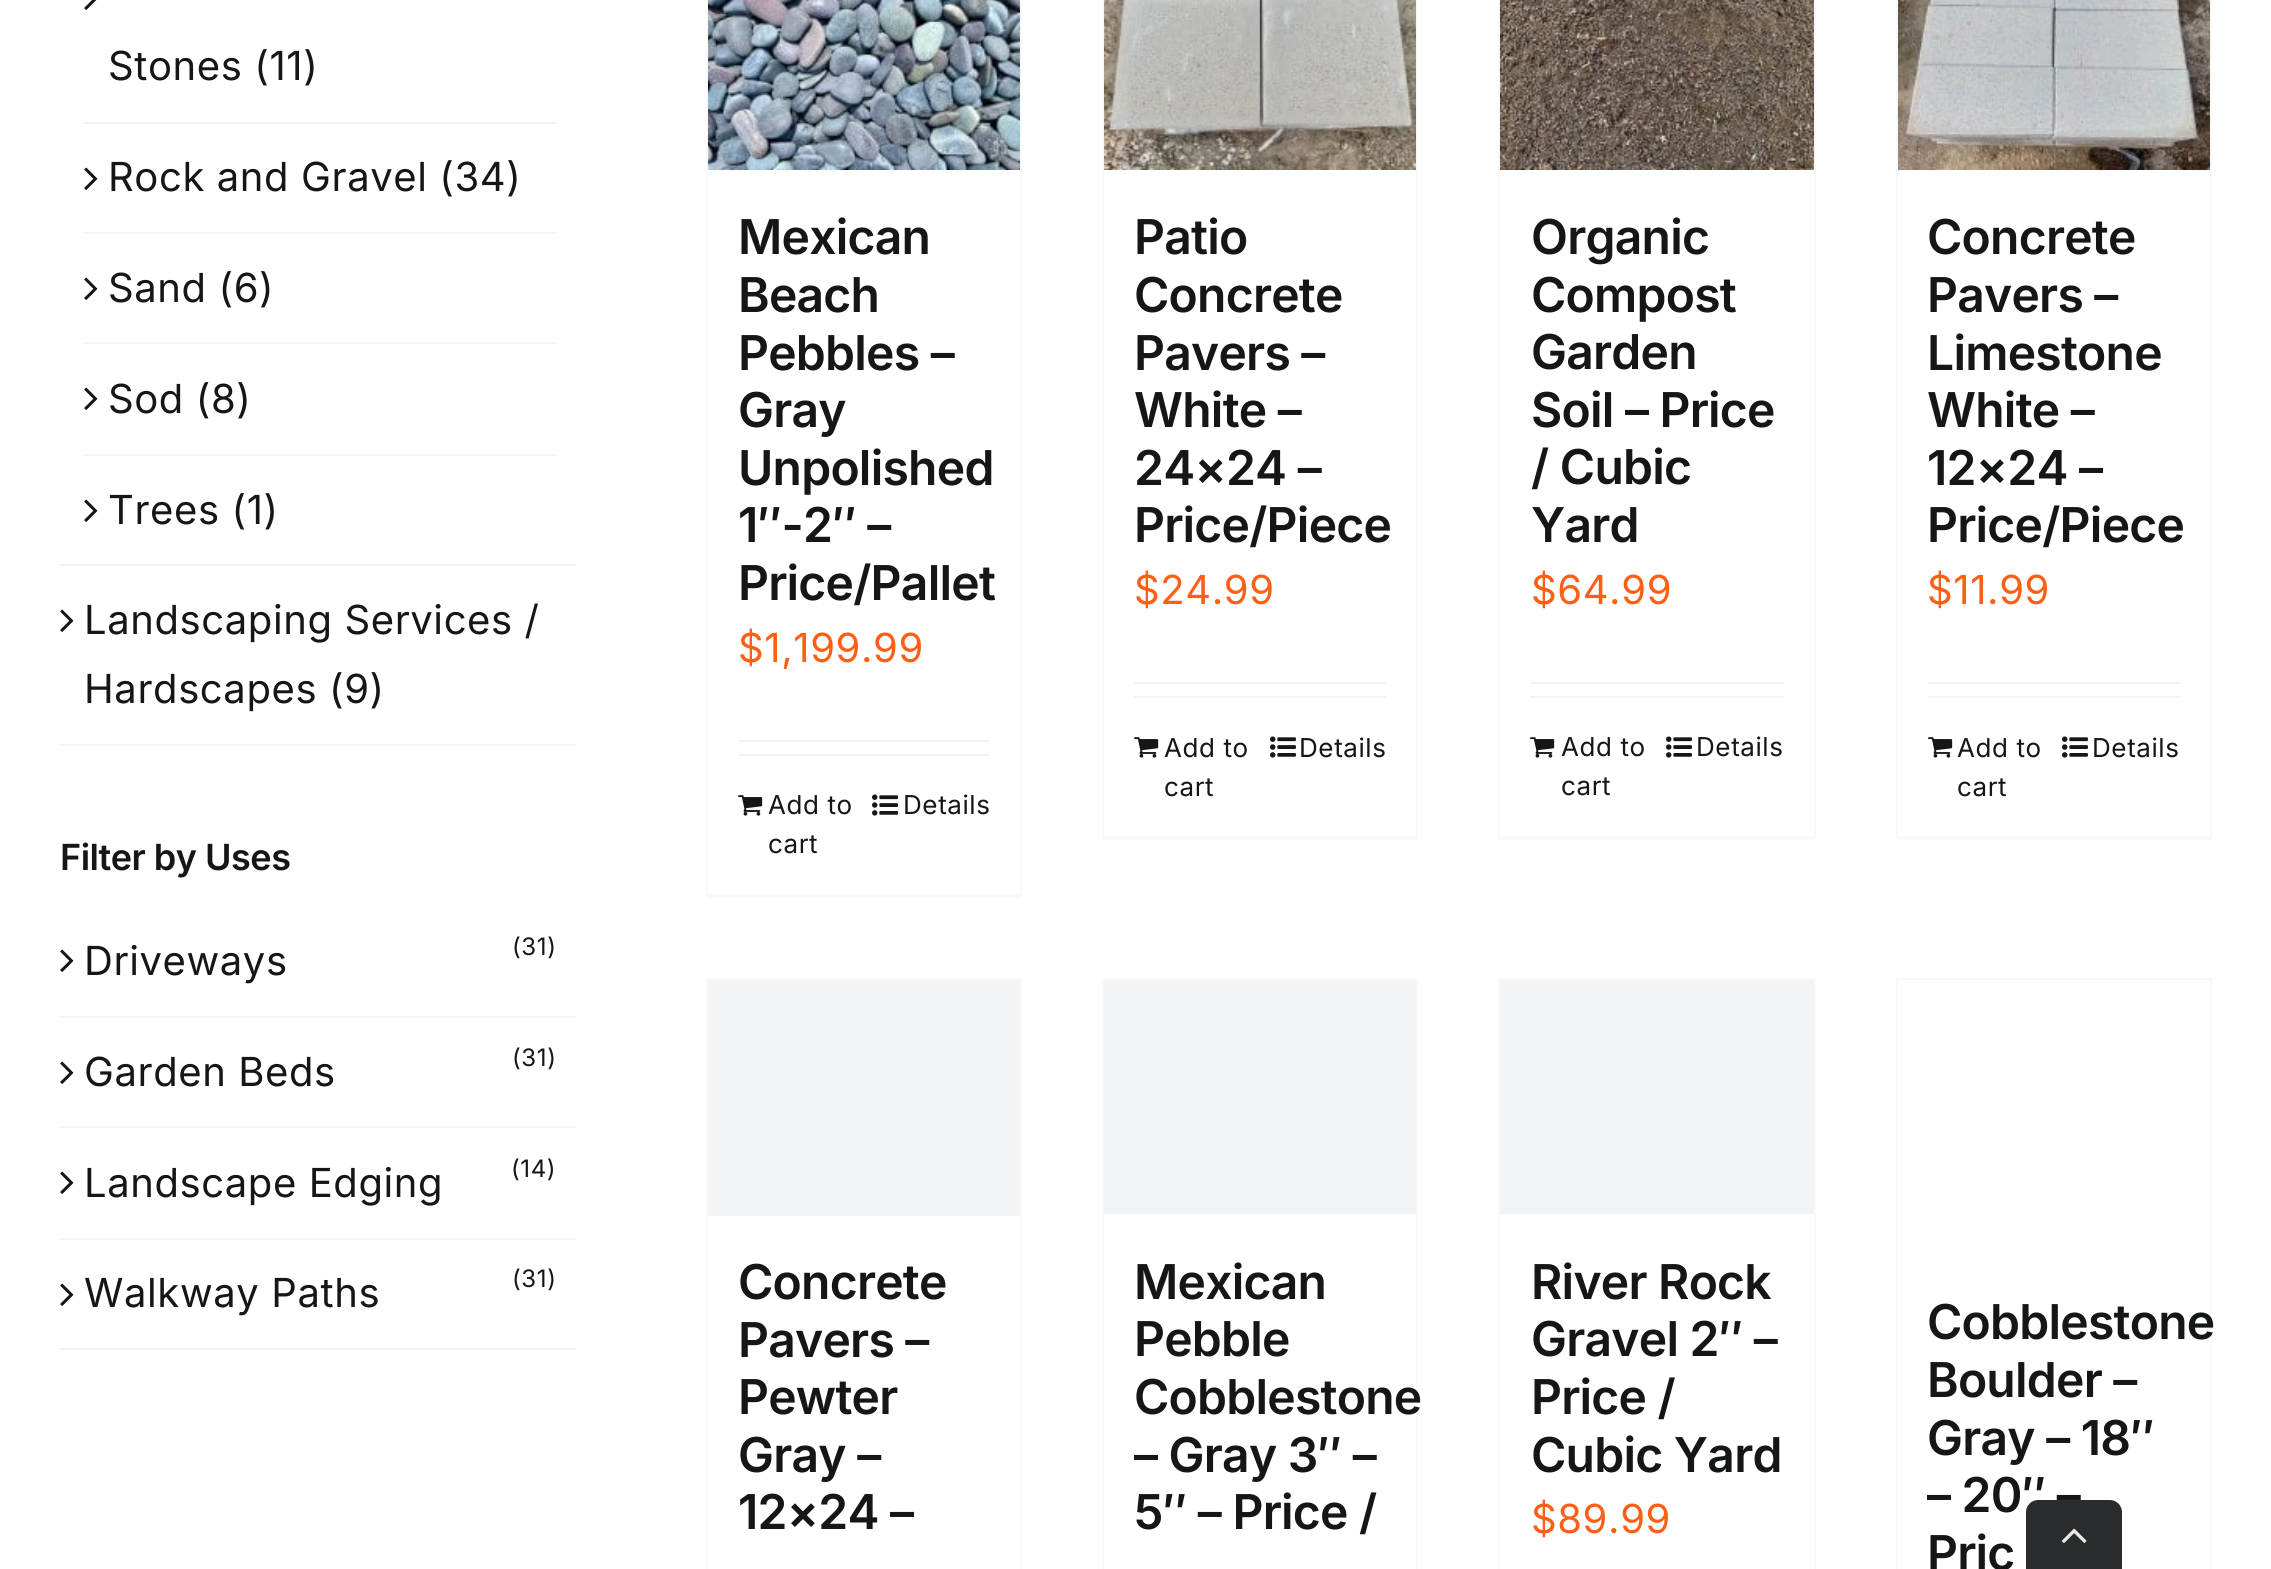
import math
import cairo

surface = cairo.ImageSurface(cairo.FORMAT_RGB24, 2271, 1569)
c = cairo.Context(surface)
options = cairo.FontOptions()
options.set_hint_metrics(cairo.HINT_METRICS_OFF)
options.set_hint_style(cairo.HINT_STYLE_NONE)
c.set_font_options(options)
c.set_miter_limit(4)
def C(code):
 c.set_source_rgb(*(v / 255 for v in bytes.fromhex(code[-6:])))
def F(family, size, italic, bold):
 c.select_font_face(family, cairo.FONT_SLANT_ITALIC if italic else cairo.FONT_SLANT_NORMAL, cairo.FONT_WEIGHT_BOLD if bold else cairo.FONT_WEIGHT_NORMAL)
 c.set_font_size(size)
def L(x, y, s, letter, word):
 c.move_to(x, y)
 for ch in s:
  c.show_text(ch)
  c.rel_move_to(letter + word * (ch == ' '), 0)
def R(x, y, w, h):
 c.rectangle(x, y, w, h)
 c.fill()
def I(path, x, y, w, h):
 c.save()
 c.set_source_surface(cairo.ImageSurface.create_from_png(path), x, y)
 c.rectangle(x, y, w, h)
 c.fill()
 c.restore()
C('ffffff')
c.paint()
C('f2f3f5')
R(60,564,516,2)
R(84,122,472,2)
I('1.png',84,0,13,10)
F('Inter',40,0,0)
C('141617')
L(108,80,'Stones (11)',.6,0)
C('f2f3f5')
R(84,232,472,2)
I('2.png',84,167,14,23)
C('141617')
L(108,191,'Rock and Gravel (34)',.6,0)
C('f2f3f5')
R(84,342,472,2)
I('2.png',84,277,14,23)
C('141617')
L(108,302,'Sand (6)',.6,0)
C('f2f3f5')
R(84,454,472,2)
I('2.png',84,387,14,23)
C('141617')
L(108,413,'Sod (8)',.6,0)
I('2.png',84,499,14,23)
L(108,524,'Trees (1)',.6,0)
C('f2f3f5')
R(60,744,516,2)
I('2.png',60,609,14,23)
C('141617')
L(84,634,'Landscaping Services /',.6,0)
L(84,703,'Hardscapes (9)',.6,0)
F('Inter SemiBold',36,0,0)
L(60,870,'Filter by Uses',-.5,0)
C('f2f3f5')
R(60,1016,516,2)
I('2.png',60,949,14,23)
F('Inter',40,0,0)
C('141617')
L(84,975,'Driveways',.6,0)
F('Inter',24,0,0)
L(512,955,'(31)',.6,0)
C('f2f3f5')
R(60,1126,516,2)
I('2.png',60,1061,14,23)
F('Inter',40,0,0)
C('141617')
L(84,1086,'Garden Beds',.6,0)
F('Inter',24,0,0)
L(512,1066,'(31)',.6,0)
C('f2f3f5')
R(60,1238,516,2)
I('2.png',60,1171,14,23)
F('Inter',40,0,0)
C('141617')
L(84,1197,'Landscape Edging',.6,0)
F('Inter',24,0,0)
L(511,1177,'(14)',.6,0)
C('f2f3f5')
R(60,1348,516,2)
I('2.png',60,1283,14,23)
F('Inter',40,0,0)
C('141617')
L(84,1307,'Walkway Paths',.6,0)
F('Inter',24,0,0)
L(512,1287,'(31)',.6,0)
C('f9f9fb')
R(1020,0,2,898)
R(706,894,316,4)
R(706,0,2,898)
I('3.png',708,0,312,170)
F('Inter SemiBold',48,0,0)
C('141617')
L(738,254,'Mexican',-.75,0)
L(738,312,'Beach',-.75,0)
L(738,370,'Pebbles –',-.75,0)
L(738,427,'Gray',-.75,0)
L(738,485,'Unpolished',-.75,0)
L(738,542,'1″-2″ –',-.75,0)
L(738,600,'Price/Pallet',-.75,0)
F('Inter',40,0,0)
C('ff5f15')
L(738,662,'$1,199.99',.6,0)
C('f2f3f5')
R(738,740,252,2)
R(738,754,252,2)
I('4.png',738,795,25,21)
F('Inter',26,0,0)
C('141617')
L(768,814,'Add to',.6,0)
L(768,853,'cart',.6,0)
I('5.png',872,794,26,22)
L(903,814,'Details',.6,0)
C('f9f9fb')
R(1416,0,2,840)
R(1102,836,316,4)
R(1102,0,2,840)
I('6.png',1104,0,312,170)
F('Inter SemiBold',48,0,0)
C('141617')
L(1134,254,'Patio',-.75,0)
L(1134,312,'Concrete',-.75,0)
L(1134,370,'Pavers –',-.75,0)
L(1134,427,'White –',-.75,0)
L(1134,485,'24×24 –',-.75,0)
L(1134,542,'Price/Piece',-.75,0)
F('Inter',40,0,0)
C('ff5f15')
L(1134,604,'$24.99',.6,0)
C('f2f3f5')
R(1134,682,252,2)
R(1134,696,252,2)
I('4.png',1134,737,25,21)
F('Inter',26,0,0)
C('141617')
L(1164,757,'Add to',.6,0)
L(1164,796,'cart',.6,0)
I('5.png',1270,736,26,22)
L(1299,757,'Details',.6,0)
C('f9f9fb')
R(1814,0,2,840)
R(1498,836,318,4)
R(1498,0,2,840)
I('7.png',1500,0,314,170)
F('Inter SemiBold',48,0,0)
C('141617')
L(1531,254,'Organic',-.75,0)
L(1531,312,'Compost',-.75,0)
L(1531,369,'Garden',-.75,0)
L(1531,427,'Soil – Price',-.75,0)
L(1531,484,'/ Cubic',-.75,0)
L(1531,542,'Yard',-.75,0)
F('Inter',40,0,0)
C('ff5f15')
L(1531,604,'$64.99',.6,0)
C('f2f3f5')
R(1530,682,254,2)
R(1530,696,254,2)
I('4.png',1530,737,25,21)
F('Inter',26,0,0)
C('141617')
L(1561,756,'Add to',.6,0)
L(1561,795,'cart',.6,0)
I('5.png',1666,736,26,22)
L(1696,756,'Details',.6,0)
C('f9f9fb')
R(2210,0,2,840)
R(1896,836,316,4)
R(1896,0,2,840)
I('8.png',1898,0,312,170)
F('Inter SemiBold',48,0,0)
C('141617')
L(1927,254,'Concrete',-.75,0)
L(1927,312,'Pavers –',-.75,0)
L(1927,370,'Limestone',-.75,0)
L(1927,427,'White –',-.75,0)
L(1927,485,'12×24 –',-.75,0)
L(1927,542,'Price/Piece',-.75,0)
F('Inter',40,0,0)
C('ff5f15')
L(1927,604,'$11.99',.6,0)
C('f2f3f5')
R(1928,682,252,2)
R(1928,696,252,2)
I('4.png',1928,737,25,21)
F('Inter',26,0,0)
C('141617')
L(1957,757,'Add to',.6,0)
L(1957,796,'cart',.6,0)
I('5.png',2062,736,26,22)
L(2092,757,'Details',.6,0)
C('f9f9fb')
R(706,978,316,2)
R(1020,978,2,591)
R(706,978,2,591)
C('f2f3f5')
R(708,980,312,236)
F('Inter SemiBold',48,0,0)
C('141617')
L(738,1299,'Concrete',-.75,0)
L(738,1357,'Pavers –',-.75,0)
L(738,1414,'Pewter',-.75,0)
L(738,1472,'Gray –',-.75,0)
L(738,1529,'12×24 –',-.75,0)
C('f9f9fb')
R(1102,978,316,2)
R(1416,978,2,591)
R(1102,978,2,591)
C('f2f3f5')
R(1104,980,312,234)
C('141617')
L(1134,1299,'Mexican',-.75,0)
L(1134,1356,'Pebble',-.75,0)
L(1134,1414,'Cobblestone',-.75,0)
L(1134,1472,'– Gray 3″ –',-.75,0)
L(1134,1529,'5″ – Price /',-.75,0)
C('f9f9fb')
R(1498,978,318,2)
R(1814,978,2,591)
R(1498,978,2,591)
C('f2f3f5')
R(1500,980,314,234)
C('141617')
L(1531,1299,'River Rock',-.75,0)
L(1531,1356,'Gravel 2″ –',-.75,0)
L(1531,1414,'Price /',-.75,0)
L(1531,1472,'Cubic Yard',-.75,0)
F('Inter',40,0,0)
C('ff5f15')
L(1531,1533,'$89.99',.6,0)
C('f9f9fb')
R(1896,978,316,2)
R(2210,978,2,591)
R(1896,978,2,591)
F('Inter SemiBold',48,0,0)
C('141617')
L(1927,1339,'Cobblestone',-.75,0)
L(1927,1397,'Boulder –',-.75,0)
L(1927,1455,'Gray – 18″',-.75,0)
L(1927,1512,'– 20″ –',-.75,0)
L(1927,1570,'Pric',-.75,0)
c.set_source_rgba(0.078,0.086,0.09,0.9)
c.new_path()
c.move_to(2038,1500)
c.line_to(2110,1500)
c.curve_to(2116.5,1500,2122,1505.5,2122,1512)
c.line_to(2122,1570)
c.line_to(2026,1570)
c.line_to(2026,1512)
c.curve_to(2026,1505.5,2031.5,1500,2038,1500)
c.close_path()
c.fill()
I('9.png',2062,1528,25,15)
surface.write_to_png('o.png')
